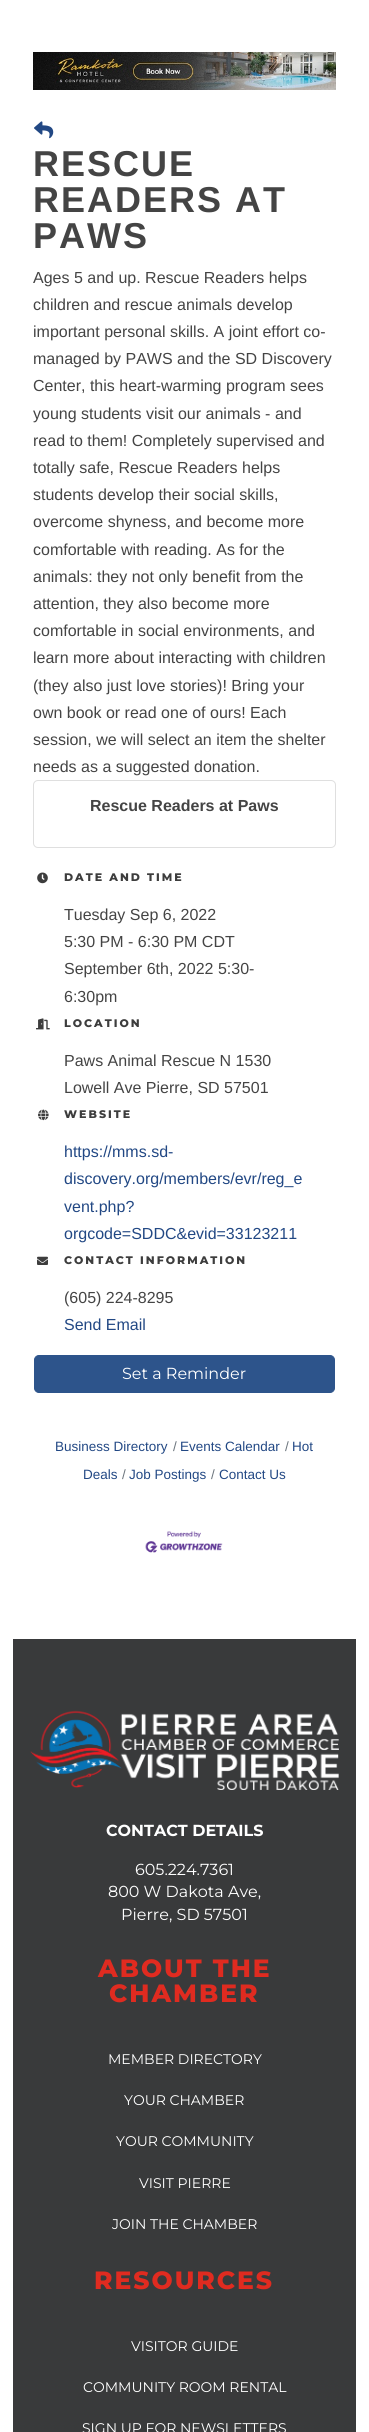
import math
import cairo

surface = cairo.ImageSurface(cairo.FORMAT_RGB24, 369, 2432)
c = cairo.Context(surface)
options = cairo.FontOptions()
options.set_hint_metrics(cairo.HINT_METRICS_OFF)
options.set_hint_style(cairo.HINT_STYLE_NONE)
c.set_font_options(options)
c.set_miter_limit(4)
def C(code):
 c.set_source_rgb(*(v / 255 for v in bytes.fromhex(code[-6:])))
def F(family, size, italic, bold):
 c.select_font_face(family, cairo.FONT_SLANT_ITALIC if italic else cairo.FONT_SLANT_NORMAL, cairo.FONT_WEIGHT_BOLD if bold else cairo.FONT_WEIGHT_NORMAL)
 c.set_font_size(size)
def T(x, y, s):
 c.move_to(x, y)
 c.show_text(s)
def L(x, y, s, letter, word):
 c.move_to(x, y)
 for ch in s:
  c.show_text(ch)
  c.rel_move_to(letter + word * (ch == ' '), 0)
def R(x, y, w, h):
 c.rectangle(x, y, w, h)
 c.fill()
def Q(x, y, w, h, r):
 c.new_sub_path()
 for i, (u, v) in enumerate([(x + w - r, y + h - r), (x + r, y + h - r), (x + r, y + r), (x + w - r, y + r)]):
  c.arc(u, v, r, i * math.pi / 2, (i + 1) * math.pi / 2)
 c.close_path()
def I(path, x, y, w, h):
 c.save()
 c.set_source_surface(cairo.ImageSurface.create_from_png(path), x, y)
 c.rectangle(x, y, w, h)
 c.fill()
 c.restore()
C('ffffff')
c.paint()
I('1.png',33,52,303,38)
I('2.png',34,121,20,18)
F('Liberation Sans',36,0,1)
C('444444')
L(33,176,'RESCUE',2,0)
L(33,212,'READERS AT',2,0)
L(33,248,'PAWS',2,0)
F('Liberation Sans',16,0,0)
T(33,283,'Ages 5 and up. Rescue Readers helps')
T(33,310,'children and rescue animals develop')
T(33,337,'important personal skills. A joint effort co-')
T(33,364,'managed by PAWS and the SD Discovery')
T(33,391,'Center, this heart-warming program sees')
T(33,419,'young students visit our animals - and')
T(33,446,'read to them! Completely supervised and')
T(33,473,'totally safe, Rescue Readers helps')
T(33,500,'students develop their social skills,')
T(33,527,'overcome shyness, and become more')
T(33,555,'comfortable with reading. As for the')
T(33,582,'animals: they not only benefit from the')
T(33,609,'attention, they also become more')
T(33,636,'comfortable in social environments, and')
T(33,663,'learn more about interacting with children')
T(33,691,'(they also just love stories)! Bring your')
T(33,718,'own book or read one of ours! Each')
T(33,745,'session, we will select an item the shelter')
T(33,772,'needs as a suggested donation.')
Q(33.5,780.5,302,67,4.5)
C('dfdfdf')
c.set_line_width(1)
c.stroke()
F('Liberation Sans',16,0,1)
C('444444')
T(90,811,'Rescue Readers at Paws')
I('3.png',37,872,11,12)
F('Montserrat Thin',11,0,0)
C('3d3d3d')
L(64,881,'DATE AND TIME',2,0)
F('Liberation Sans',16,0,0)
C('444444')
T(64,920,'Tuesday Sep 6, 2022')
T(64,947,'5:30 PM - 6:30 PM CDT')
T(64,974,'September 6th, 2022 5:30-')
T(64,1002,'6:30pm')
I('4.png',36,1018,14,12)
F('Montserrat Thin',11,0,0)
C('3d3d3d')
L(64,1027,'LOCATION',2,0)
F('Liberation Sans',16,0,0)
C('444444')
T(64,1066,'Paws Animal Rescue N 1530')
T(64,1093,'Lowell Ave Pierre, SD 57501')
I('5.png',38,1109,11,12)
F('Montserrat Thin',11,0,0)
C('3d3d3d')
L(64,1118,'WEBSITE',2,0)
F('Liberation Sans',16,0,0)
C('224884')
T(64,1157,'https://mms.sd-')
T(64,1184,'discovery.org/members/evr/reg_e')
T(64,1212,'vent.php?')
T(64,1239,'orgcode=SDDC&evid=33123211')
I('6.png',37,1256,11,9)
F('Montserrat Thin',11,0,0)
C('3d3d3d')
L(64,1264,'CONTACT INFORMATION',2,0)
F('Liberation Sans',16,0,0)
C('444444')
T(64,1303,'(605) 224-8295')
C('224884')
T(64,1330,'Send Email')
C('2d548b')
Q(34.5,1355.5,300,37,4.5)
c.fill_preserve()
c.stroke()
F('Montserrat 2 Thin',16,0,0)
C('ffffff')
T(122,1379,'Set a Reminder')
F('Liberation Sans',13.5,0,0)
C('224884')
T(55,1451,'Business Directory')
C('6c757d')
T(285,1451,'/')
C('224884')
T(292,1451,'Hot')
T(83,1479,'Deals')
C('6c757d')
T(173,1451,'/')
C('224884')
T(180,1451,'Events Calendar')
C('6c757d')
T(122,1479,'/')
C('224884')
T(129,1479,'Job Postings')
C('6c757d')
T(211,1479,'/')
C('224884')
T(219,1479,'Contact Us')
I('7.png',145,1531,78,22)
C('393a3b')
R(13,1639,343,793)
I('8.png',30,1710,309,80)
F('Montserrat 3 Thin',16,0,0)
C('ffffff')
T(106,1836,'CONTACT DETAILS')
F('Montserrat 2 Thin',16,0,0)
T(135,1875,'605.224.7361')
T(108,1897,'800 W Dakota Ave,')
T(121,1920,'Pierre, SD 57501')
F('Montserrat Thin',25,0,0)
C('e02b20')
L(98,1977,'ABOUT THE',2,0)
L(109,2002,'CHAMBER',2,0)
F('Montserrat 2 Thin',14,0,0)
C('ffffff')
T(108,2064,'MEMBER DIRECTORY')
T(124,2105,'YOUR CHAMBER')
T(116,2146,'YOUR COMMUNITY')
T(139,2188,'VISIT PIERRE')
T(112,2229,'JOIN THE CHAMBER')
F('Montserrat Thin',25,0,0)
C('e02b20')
L(94,2289,'RESOURCES',2,0)
F('Montserrat 2 Thin',14,0,0)
C('ffffff')
T(131,2351,'VISITOR GUIDE')
T(83,2392,'COMMUNITY ROOM RENTAL')
T(82,2433,'SIGN UP FOR NEWSLETTERS')
surface.write_to_png('o.png')
